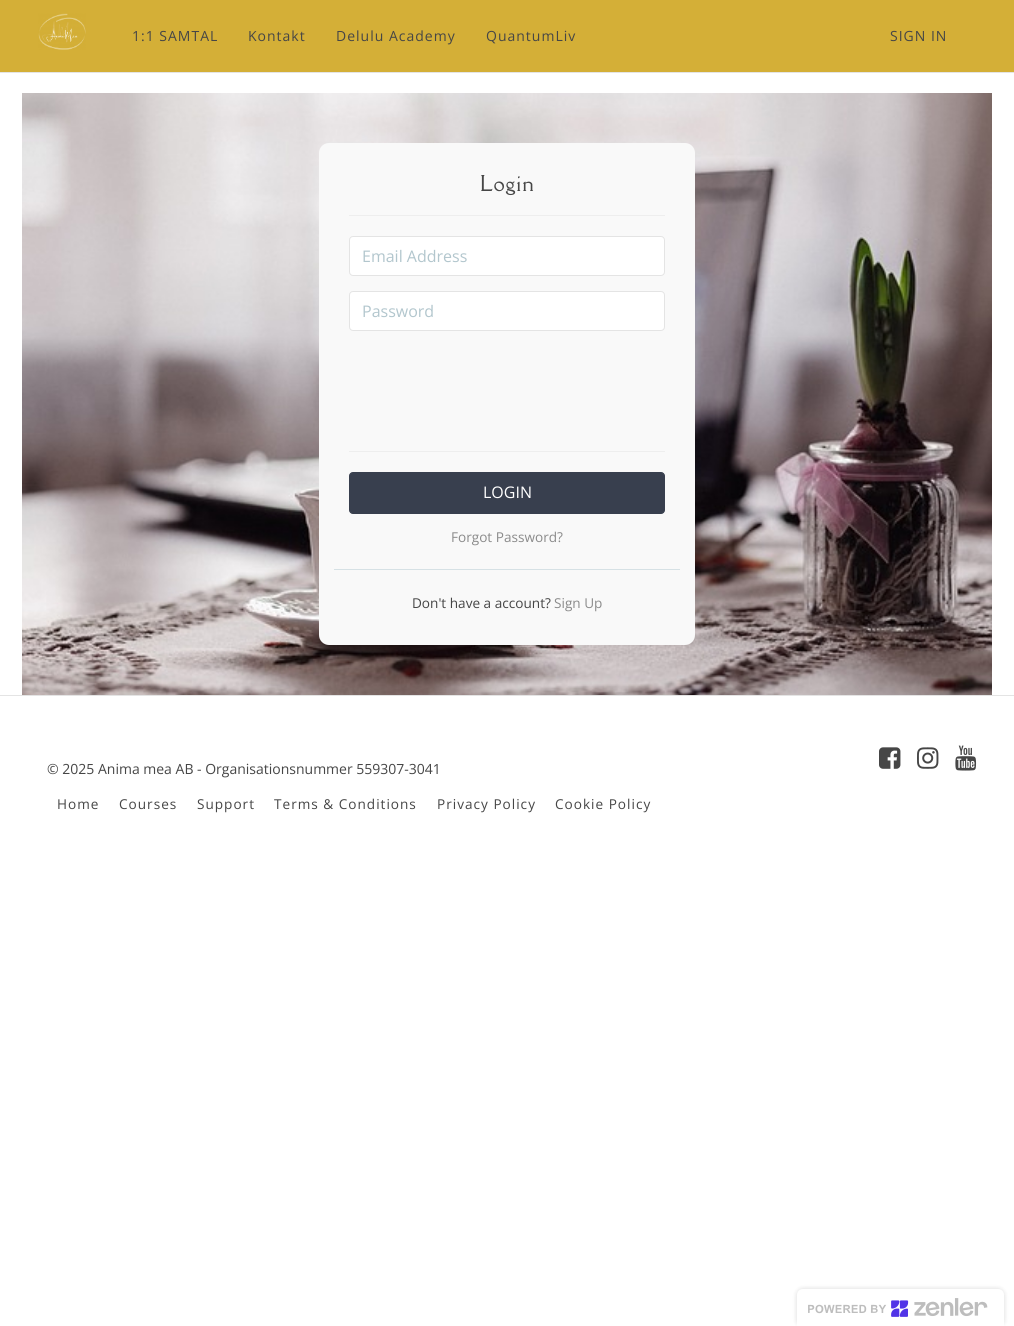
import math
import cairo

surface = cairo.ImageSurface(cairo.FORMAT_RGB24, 1014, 1326)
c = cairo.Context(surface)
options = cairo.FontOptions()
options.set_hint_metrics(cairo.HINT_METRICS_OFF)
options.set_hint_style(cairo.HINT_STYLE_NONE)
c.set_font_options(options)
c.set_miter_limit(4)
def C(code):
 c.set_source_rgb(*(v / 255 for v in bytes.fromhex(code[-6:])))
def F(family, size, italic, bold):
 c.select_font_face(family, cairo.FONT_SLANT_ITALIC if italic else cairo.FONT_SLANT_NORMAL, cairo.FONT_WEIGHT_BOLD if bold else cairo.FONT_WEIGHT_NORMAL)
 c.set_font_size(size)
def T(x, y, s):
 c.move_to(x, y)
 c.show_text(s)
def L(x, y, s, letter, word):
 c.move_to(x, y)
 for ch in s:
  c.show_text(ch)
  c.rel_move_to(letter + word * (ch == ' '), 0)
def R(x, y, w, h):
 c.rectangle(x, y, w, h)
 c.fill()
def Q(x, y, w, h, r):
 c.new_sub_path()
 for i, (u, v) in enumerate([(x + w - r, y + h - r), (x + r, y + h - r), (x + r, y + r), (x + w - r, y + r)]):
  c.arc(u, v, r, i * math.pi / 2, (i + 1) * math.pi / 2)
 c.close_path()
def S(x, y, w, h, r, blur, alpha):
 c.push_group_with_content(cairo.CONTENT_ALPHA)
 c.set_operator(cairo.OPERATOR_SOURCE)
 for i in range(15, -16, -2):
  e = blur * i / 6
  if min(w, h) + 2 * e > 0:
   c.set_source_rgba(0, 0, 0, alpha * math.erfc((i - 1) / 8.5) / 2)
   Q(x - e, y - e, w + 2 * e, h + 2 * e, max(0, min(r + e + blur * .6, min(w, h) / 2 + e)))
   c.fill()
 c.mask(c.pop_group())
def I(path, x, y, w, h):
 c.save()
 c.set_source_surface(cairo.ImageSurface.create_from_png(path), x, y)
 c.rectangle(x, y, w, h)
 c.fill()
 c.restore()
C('ffffff')
c.paint()
C('e4e4e4')
R(0,72,1014,1)
C('d4af37')
R(0,0,1014,72)
I('1.png',38,13,48,37)
F('Open Sans',14,0,0)
C('464646')
L(132,41,'1:1 SAMTAL',1,0)
L(248,41,'Kontakt',1,0)
L(336,41,'Delulu Academy',1,0)
L(486,41,'QuantumLiv',1,0)
L(890,41,'SIGN IN',1,0)
I('2.png',22,93,970,602)
C('f9f9f9')
Q(319,143,376,502,10)
c.fill()
F('Della Respira',20,0,0)
C('464646')
L(480,191,'Login',1,0)
C('eeeeee')
R(349,215,316,1)
C('ffffff')
Q(349.5,236.5,315,39,3.5)
c.fill_preserve()
C('e4e4e4')
c.set_line_width(1)
c.stroke()
F('Open Sans',16,0,0)
C('b2c6cd')
T(362,262,'Email Address')
C('ffffff')
Q(349.5,291.5,315,39,3.5)
c.fill_preserve()
C('e4e4e4')
c.stroke()
C('b2c6cd')
T(362,317,'Password')
C('eeeeee')
R(349,451,316,1)
C('383f4e')
Q(349.5,472.5,315,41,3.5)
c.fill_preserve()
c.stroke()
C('ffffff')
T(483,498,'LOGIN')
F('Open Sans',13.6,0,0)
C('8b8b8b')
T(451,542,'Forgot Password?')
C('d6e1e5')
R(334,569,346,1)
C('464646')
T(412,608,'Don\'t have a account?')
C('8b8b8b')
T(554,608,'Sign Up')
C('e4e4e4')
R(0,695,1014,1)
I('3.png',879,747,22,22)
I('4.png',917,747,22,22)
I('5.png',955,745,22,26)
F('Open Sans',14,0,0)
C('464646')
T(47,774,'© 2025 Anima mea AB - Organisationsnummer 559307-3041')
F('Open Sans',13.6,0,0)
L(57,809,'Home',1,0)
L(119,809,'Courses',1,0)
L(197,809,'Support',1,0)
L(274,809,'Terms & Conditions',1,0)
L(437,809,'Privacy Policy',1,0)
L(555,809,'Cookie Policy',1,0)
C('000000')
S(797,1289,207,37,6,2.5,.15)
C('ffffff')
c.new_path()
c.move_to(803,1289)
c.line_to(998,1289)
c.curve_to(1001.5,1289,1004,1291.5,1004,1295)
c.line_to(1004,1326)
c.line_to(797,1326)
c.line_to(797,1295)
c.curve_to(797,1291.5,799.5,1289,803,1289)
c.close_path()
c.fill()
I('6.png',808,1298,180,19)
surface.write_to_png('o.png')
